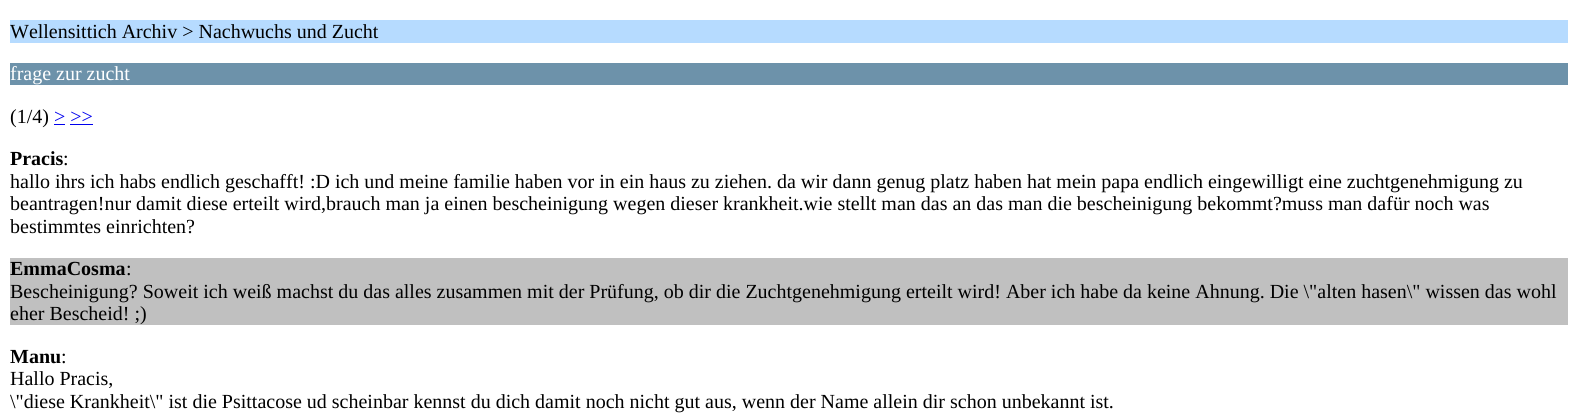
import math
import cairo

surface = cairo.ImageSurface(cairo.FORMAT_RGB24, 1577, 419)
c = cairo.Context(surface)
options = cairo.FontOptions()
options.set_hint_metrics(cairo.HINT_METRICS_OFF)
options.set_hint_style(cairo.HINT_STYLE_NONE)
c.set_font_options(options)
c.set_miter_limit(4)
def C(code):
 c.set_source_rgb(*(v / 255 for v in bytes.fromhex(code[-6:])))
def F(family, size, italic, bold):
 c.select_font_face(family, cairo.FONT_SLANT_ITALIC if italic else cairo.FONT_SLANT_NORMAL, cairo.FONT_WEIGHT_BOLD if bold else cairo.FONT_WEIGHT_NORMAL)
 c.set_font_size(size)
def T(x, y, s):
 c.move_to(x, y)
 c.show_text(s)
def R(x, y, w, h):
 c.rectangle(x, y, w, h)
 c.fill()
C('ffffff')
c.paint()
C('b6dbff')
R(10,20,1558,23)
F('Liberation Serif',20,0,0)
C('000000')
T(10,38,'Wellensittich Archiv > Nachwuchs und Zucht')
C('6d92aa')
R(10,63,1558,22)
C('ffffff')
T(10,80,'frage zur zucht')
C('000000')
T(10,123,'(1/4)')
C('0000ee')
T(54,123,'> >>')
R(54,124,11,1)
R(70,124,23,1)
F('Liberation Serif',20,0,1)
C('000000')
T(10,165,'Pracis')
F('Liberation Serif',20,0,0)
T(63,165,':')
T(10,188,'hallo ihrs ich habs endlich geschafft! :D ich und meine familie haben vor in ein haus zu ziehen. da wir dann genug platz haben hat mein papa endlich eingewilligt eine zuchtgenehmigung zu')
T(10,210,'beantragen!nur damit diese erteilt wird,brauch man ja einen bescheinigung wegen dieser krankheit.wie stellt man das an das man die bescheinigung bekommt?muss man dafür noch was')
T(10,233,'bestimmtes einrichten?')
C('c0c0c0')
R(10,258,1558,67)
F('Liberation Serif',20,0,1)
C('000000')
T(10,275,'EmmaCosma')
F('Liberation Serif',20,0,0)
T(126,275,':')
T(10,298,'Bescheinigung? Soweit ich weiß machst du das alles zusammen mit der Prüfung, ob dir die Zuchtgenehmigung erteilt wird! Aber ich habe da keine Ahnung. Die \\"alten hasen\\" wissen das wohl')
T(10,320,'eher Bescheid! ;)')
F('Liberation Serif',20,0,1)
T(10,363,'Manu')
F('Liberation Serif',20,0,0)
T(61,363,':')
T(10,385,'Hallo Pracis,')
T(10,408,'\\"diese Krankheit\\" ist die Psittacose ud scheinbar kennst du dich damit noch nicht gut aus, wenn der Name allein dir schon unbekannt ist.')
surface.write_to_png('o.png')
